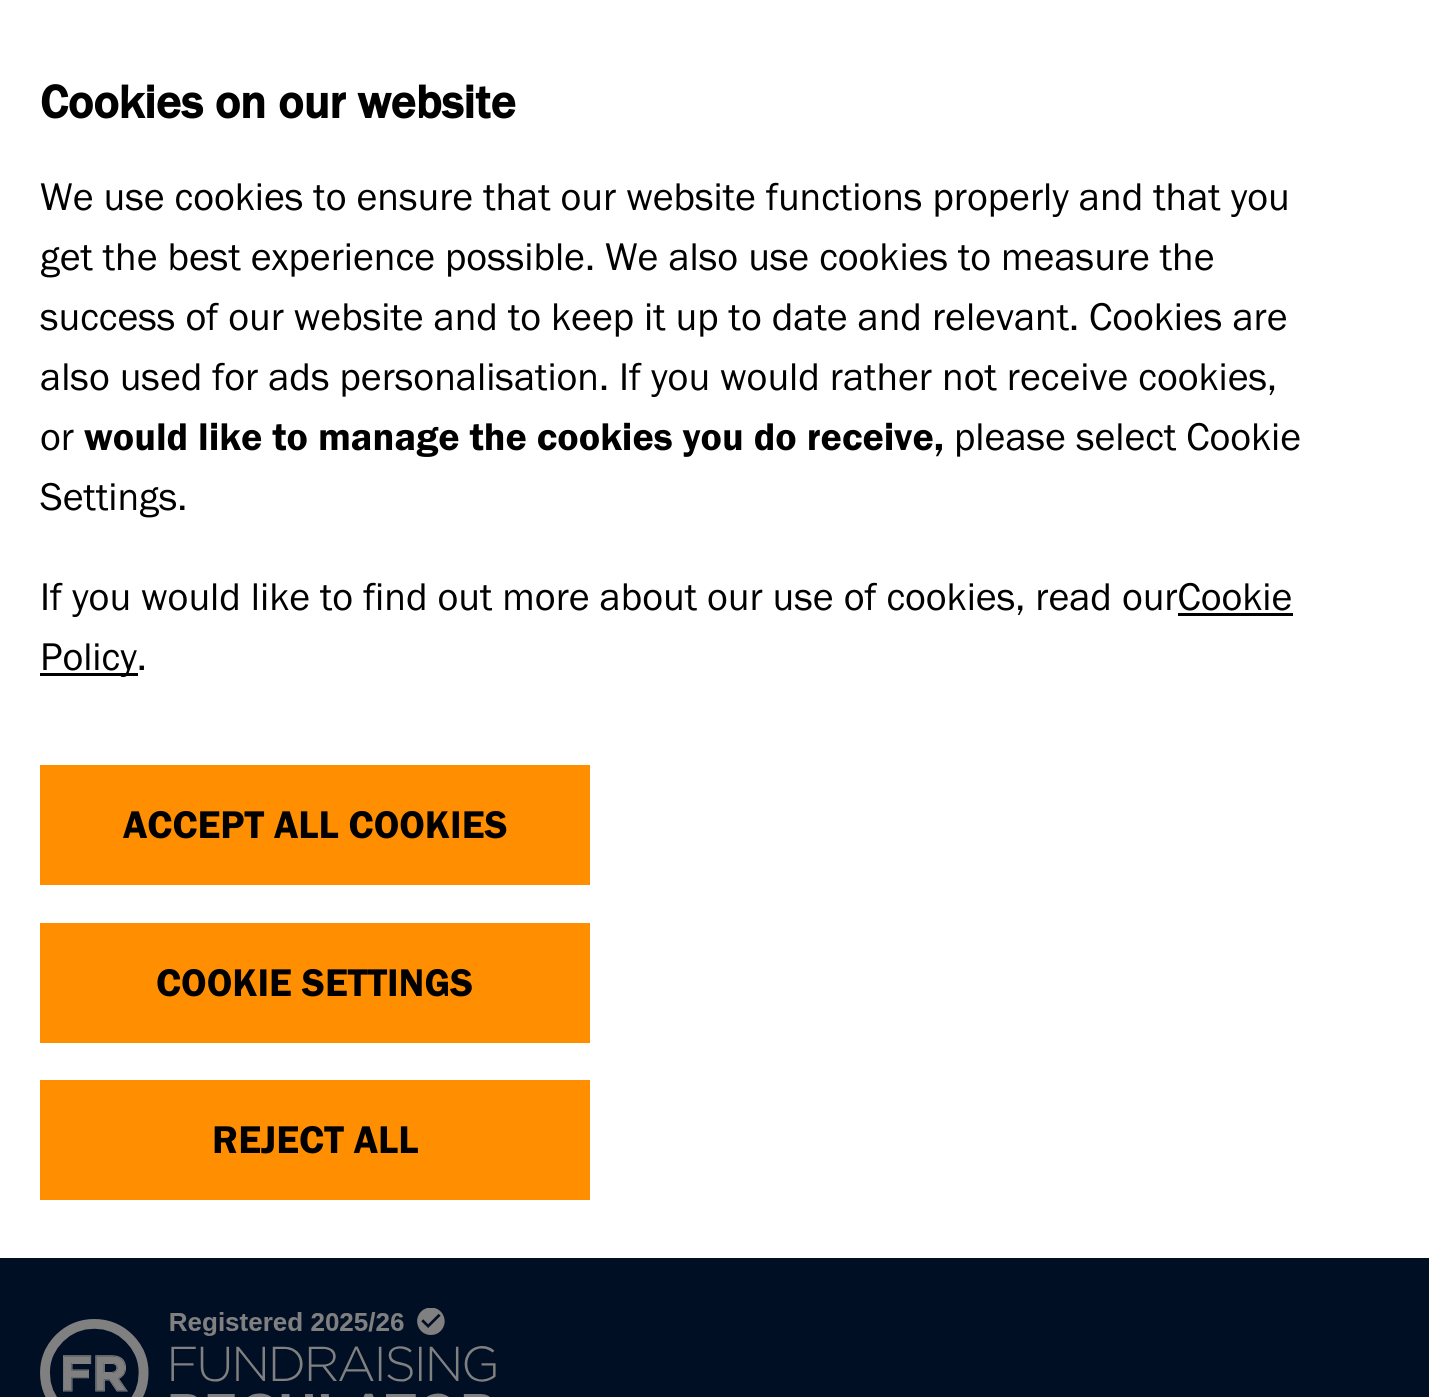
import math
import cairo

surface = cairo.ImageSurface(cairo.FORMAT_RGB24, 1429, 1397)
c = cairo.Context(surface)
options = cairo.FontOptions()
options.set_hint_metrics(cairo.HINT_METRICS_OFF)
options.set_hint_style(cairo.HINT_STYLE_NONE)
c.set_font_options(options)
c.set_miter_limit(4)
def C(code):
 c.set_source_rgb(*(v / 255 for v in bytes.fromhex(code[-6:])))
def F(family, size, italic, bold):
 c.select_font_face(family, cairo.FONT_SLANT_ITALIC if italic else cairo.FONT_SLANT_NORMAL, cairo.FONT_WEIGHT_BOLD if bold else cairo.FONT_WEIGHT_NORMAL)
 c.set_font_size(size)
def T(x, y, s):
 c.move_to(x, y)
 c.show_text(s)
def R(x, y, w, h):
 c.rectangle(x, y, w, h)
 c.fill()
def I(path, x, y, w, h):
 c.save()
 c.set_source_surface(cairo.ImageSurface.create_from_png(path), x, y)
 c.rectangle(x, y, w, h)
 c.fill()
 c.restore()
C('010f25')
c.paint()
C('ffffff')
R(0,0,1429,1258)
F('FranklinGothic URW',48,0,1)
C('000000')
T(40,118,'Cookies on our website')
F('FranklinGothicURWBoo',40,0,0)
T(40,210,'We use cookies to ensure that our website functions properly and that you')
T(40,270,'get the best experience possible. We also use cookies to measure the')
T(40,330,'success of our website and to keep it up to date and relevant. Cookies are')
T(40,390,'also used for ads personalisation. If you would rather not receive cookies,')
T(40,450,'or')
F('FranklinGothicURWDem',40,0,0)
T(84,450,'would like to manage the cookies you do receive,')
F('FranklinGothicURWBoo',40,0,0)
T(954,450,'please select Cookie')
T(40,510,'Settings.')
T(40,610,'If you would like to find out more about our use of cookies, read ourCookie')
R(40,673,98,3)
T(40,670,'Policy.')
R(1178,613,115,3)
C('ff8e00')
R(40,765,550,120)
F('FranklinGothicURWDem',40,0,0)
C('000000')
T(123,838,'ACCEPT ALL COOKIES')
C('ff8e00')
R(40,923,550,120)
C('000000')
T(156,996,'COOKIE SETTINGS')
C('ff8e00')
R(40,1080,550,120)
C('000000')
T(212,1153,'REJECT ALL')
I('1.png',40,1308,456,89)
surface.write_to_png('o.png')
